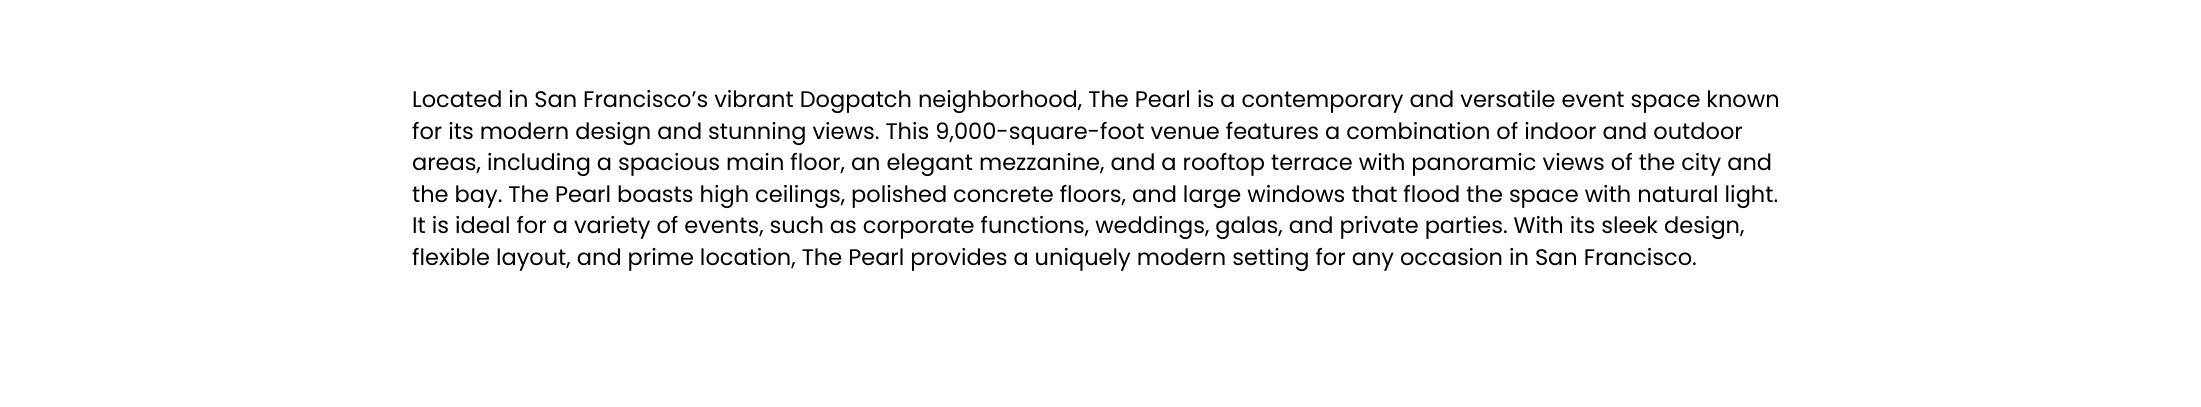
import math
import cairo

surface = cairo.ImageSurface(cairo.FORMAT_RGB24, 2201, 407)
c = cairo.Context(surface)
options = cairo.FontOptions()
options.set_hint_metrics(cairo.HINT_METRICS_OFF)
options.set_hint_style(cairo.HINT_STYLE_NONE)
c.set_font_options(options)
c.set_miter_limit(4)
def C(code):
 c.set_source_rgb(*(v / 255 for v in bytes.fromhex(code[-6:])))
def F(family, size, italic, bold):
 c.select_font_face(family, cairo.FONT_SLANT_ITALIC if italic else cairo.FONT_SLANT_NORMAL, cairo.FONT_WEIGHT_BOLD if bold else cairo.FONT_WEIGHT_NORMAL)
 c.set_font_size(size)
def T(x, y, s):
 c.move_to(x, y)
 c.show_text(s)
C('ffffff')
c.paint()
F('Poppins',22.5,0,0)
C('000000')
T(412,107,'Located in San Francisco’s vibrant Dogpatch neighborhood, The Pearl is a contemporary and versatile event space known')
T(412,139,'for its modern design and stunning views. This 9,000-square-foot venue features a combination of indoor and outdoor')
T(412,170,'areas, including a spacious main floor, an elegant mezzanine, and a rooftop terrace with panoramic views of the city and')
T(412,202,'the bay. The Pearl boasts high ceilings, polished concrete floors, and large windows that flood the space with natural light.')
T(412,233,'It is ideal for a variety of events, such as corporate functions, weddings, galas, and private parties. With its sleek design,')
T(412,265,'flexible layout, and prime location, The Pearl provides a uniquely modern setting for any occasion in San Francisco.')
surface.write_to_png('o.png')
